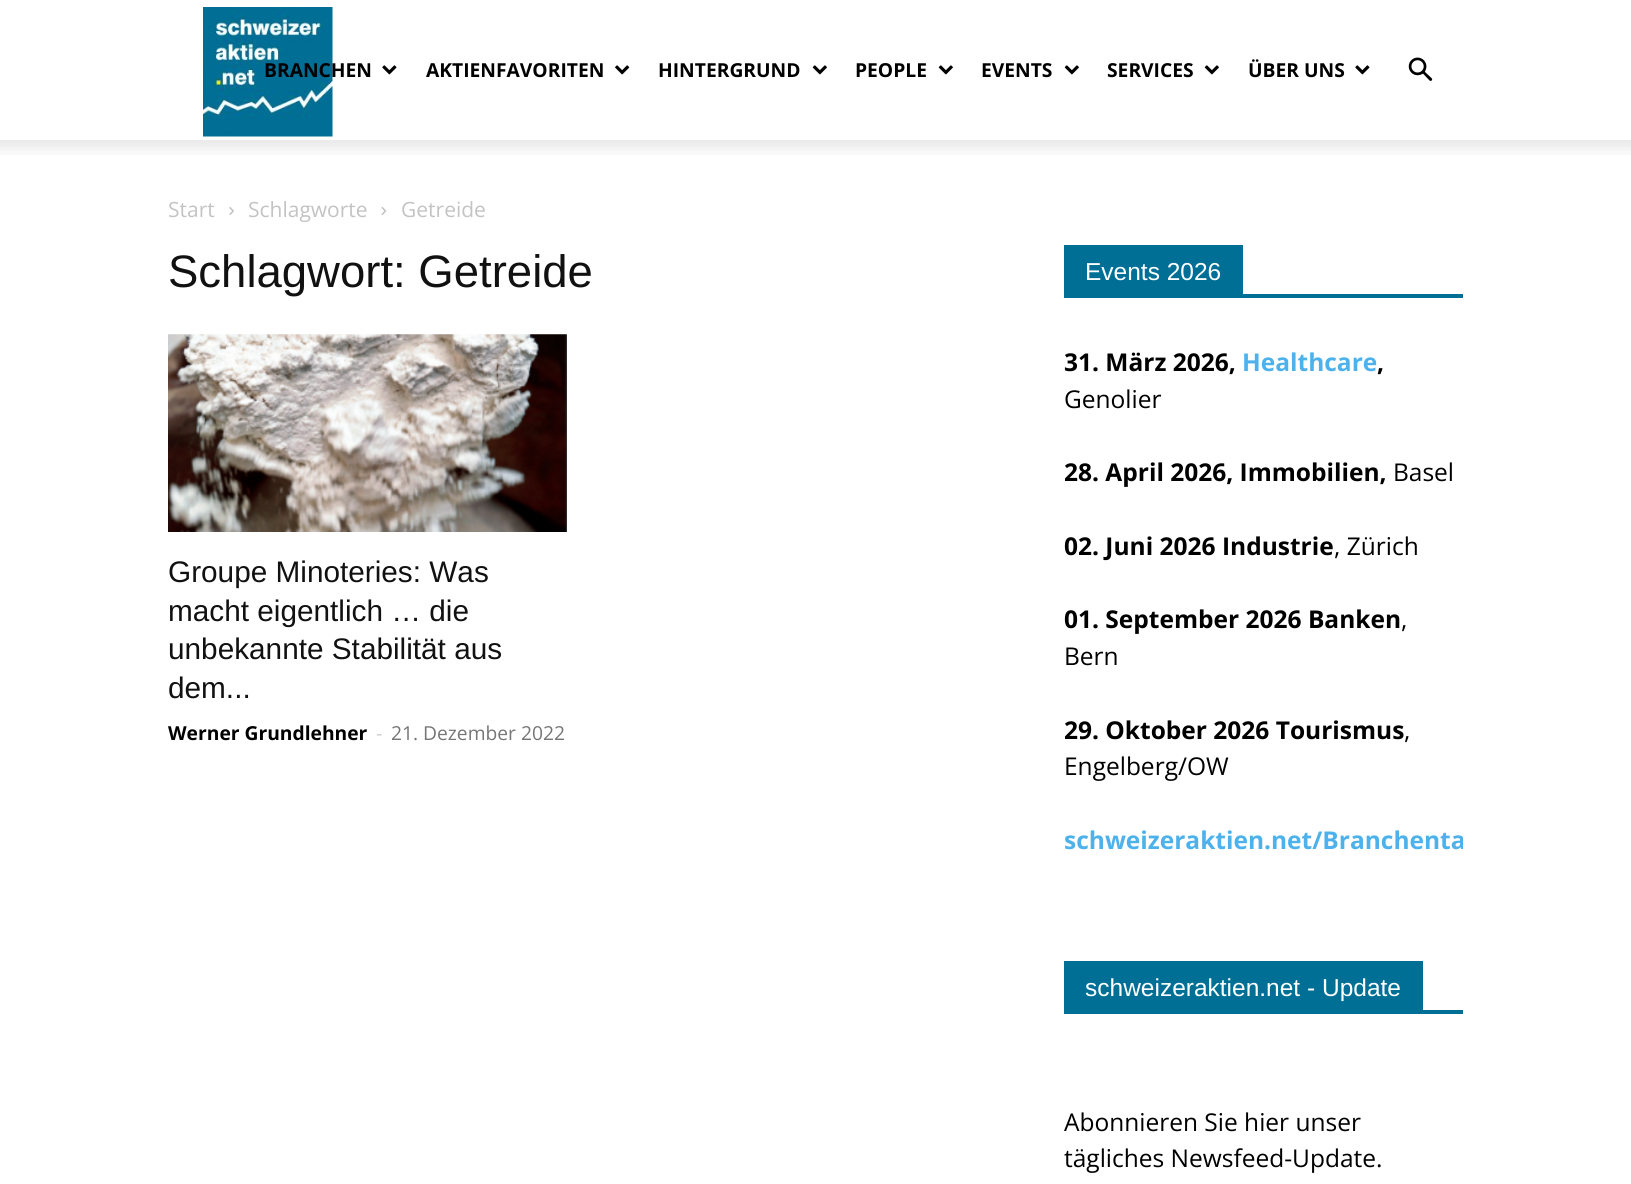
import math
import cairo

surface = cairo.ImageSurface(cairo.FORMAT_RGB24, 1631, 1184)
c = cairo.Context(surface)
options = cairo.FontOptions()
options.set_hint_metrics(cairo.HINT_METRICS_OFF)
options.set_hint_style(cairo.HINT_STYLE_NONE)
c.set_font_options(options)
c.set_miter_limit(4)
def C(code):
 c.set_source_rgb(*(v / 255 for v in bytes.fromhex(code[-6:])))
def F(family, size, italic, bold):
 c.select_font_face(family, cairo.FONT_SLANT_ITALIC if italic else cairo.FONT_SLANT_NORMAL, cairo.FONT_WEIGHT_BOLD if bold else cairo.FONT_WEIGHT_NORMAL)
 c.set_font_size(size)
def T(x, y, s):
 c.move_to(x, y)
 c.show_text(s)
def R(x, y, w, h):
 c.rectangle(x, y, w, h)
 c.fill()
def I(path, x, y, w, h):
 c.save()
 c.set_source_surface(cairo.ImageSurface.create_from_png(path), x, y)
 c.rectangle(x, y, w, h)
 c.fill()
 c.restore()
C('ffffff')
c.paint()
I('1.png',203,7,130,130)
F('Open Sans',19.25,0,1)
C('000000')
T(264,77,'BRANCHEN')
I('2.png',382,65,15,10)
T(426,77,'AKTIENFAVORITEN')
I('3.png',615,65,15,10)
T(658,77,'HINTERGRUND')
I('4.png',812,65,15,10)
T(855,77,'PEOPLE')
I('4.png',938,65,15,10)
T(981,77,'EVENTS')
I('4.png',1064,65,15,10)
T(1107,77,'SERVICES')
I('4.png',1204,65,15,10)
T(1248,77,'ÜBER UNS')
I('2.png',1355,65,15,10)
I('5.png',1408,57,25,24)
I('6.png',0,140,1631,15)
F('Open Sans',21,0,0)
C('c3c3c3')
T(168,217,'Start')
I('7.png',229,207,5,8)
T(248,217,'Schlagworte')
I('8.png',381,207,6,8)
T(401,217,'Getreide')
F('Liberation Sans',45.5,0,0)
C('111111')
T(168,287,'Schlagwort: Getreide')
I('9.png',168,334,399,198)
F('Liberation Sans',29.75,0,0)
T(168,582,'Groupe Minoteries: Was')
T(168,621,'macht eigentlich … die')
T(168,659,'unbekannte Stabilität aus')
T(168,698,'dem...')
F('Open Sans',19.25,0,1)
C('000000')
T(168,740,'Werner Grundlehner')
F('Open Sans',19.25,0,0)
C('cccccc')
T(376,740,'-')
C('767676')
T(391,740,'21. Dezember 2022')
C('006f95')
R(1064,294,399,4)
R(1064,245,179,49)
F('Liberation Sans',24.5,0,0)
C('ffffff')
T(1085,280,'Events 2026')
F('Open Sans',24.5,0,1)
C('000000')
T(1064,371,'31. März 2026,')
C('4db2ec')
T(1242,371,'Healthcare')
C('000000')
T(1377,371,',')
F('Open Sans',24.5,0,0)
T(1064,408,'Genolier')
F('Open Sans',24.5,0,1)
T(1064,481,'28. April 2026, Immobilien,')
F('Open Sans',24.5,0,0)
T(1393,481,'Basel')
F('Open Sans',24.5,0,1)
T(1064,555,'02. Juni 2026 Industrie')
F('Open Sans',24.5,0,0)
T(1334,555,', Zürich')
F('Open Sans',24.5,0,1)
T(1064,628,'01. September 2026 Banken')
F('Open Sans',24.5,0,0)
T(1401,628,',')
T(1064,665,'Bern')
F('Open Sans',24.5,0,1)
T(1064,739,'29. Oktober 2026 Tourismus')
F('Open Sans',24.5,0,0)
T(1404,739,',')
T(1064,775,'Engelberg/OW')
c.save()
c.rectangle(1064,245,399,649)
c.clip()
F('Open Sans',24.5,0,1)
C('4db2ec')
T(1064,849,'schweizeraktien.net/Branchenta')
c.restore()
C('006f95')
R(1064,1010,399,4)
R(1064,961,359,49)
F('Liberation Sans',24.5,0,0)
C('ffffff')
T(1085,996,'schweizeraktien.net - Update')
F('Open Sans',24.5,0,0)
C('000000')
T(1064,1131,'Abonnieren Sie hier unser')
T(1064,1167,'tägliches Newsfeed-Update.')
surface.write_to_png('o.png')
